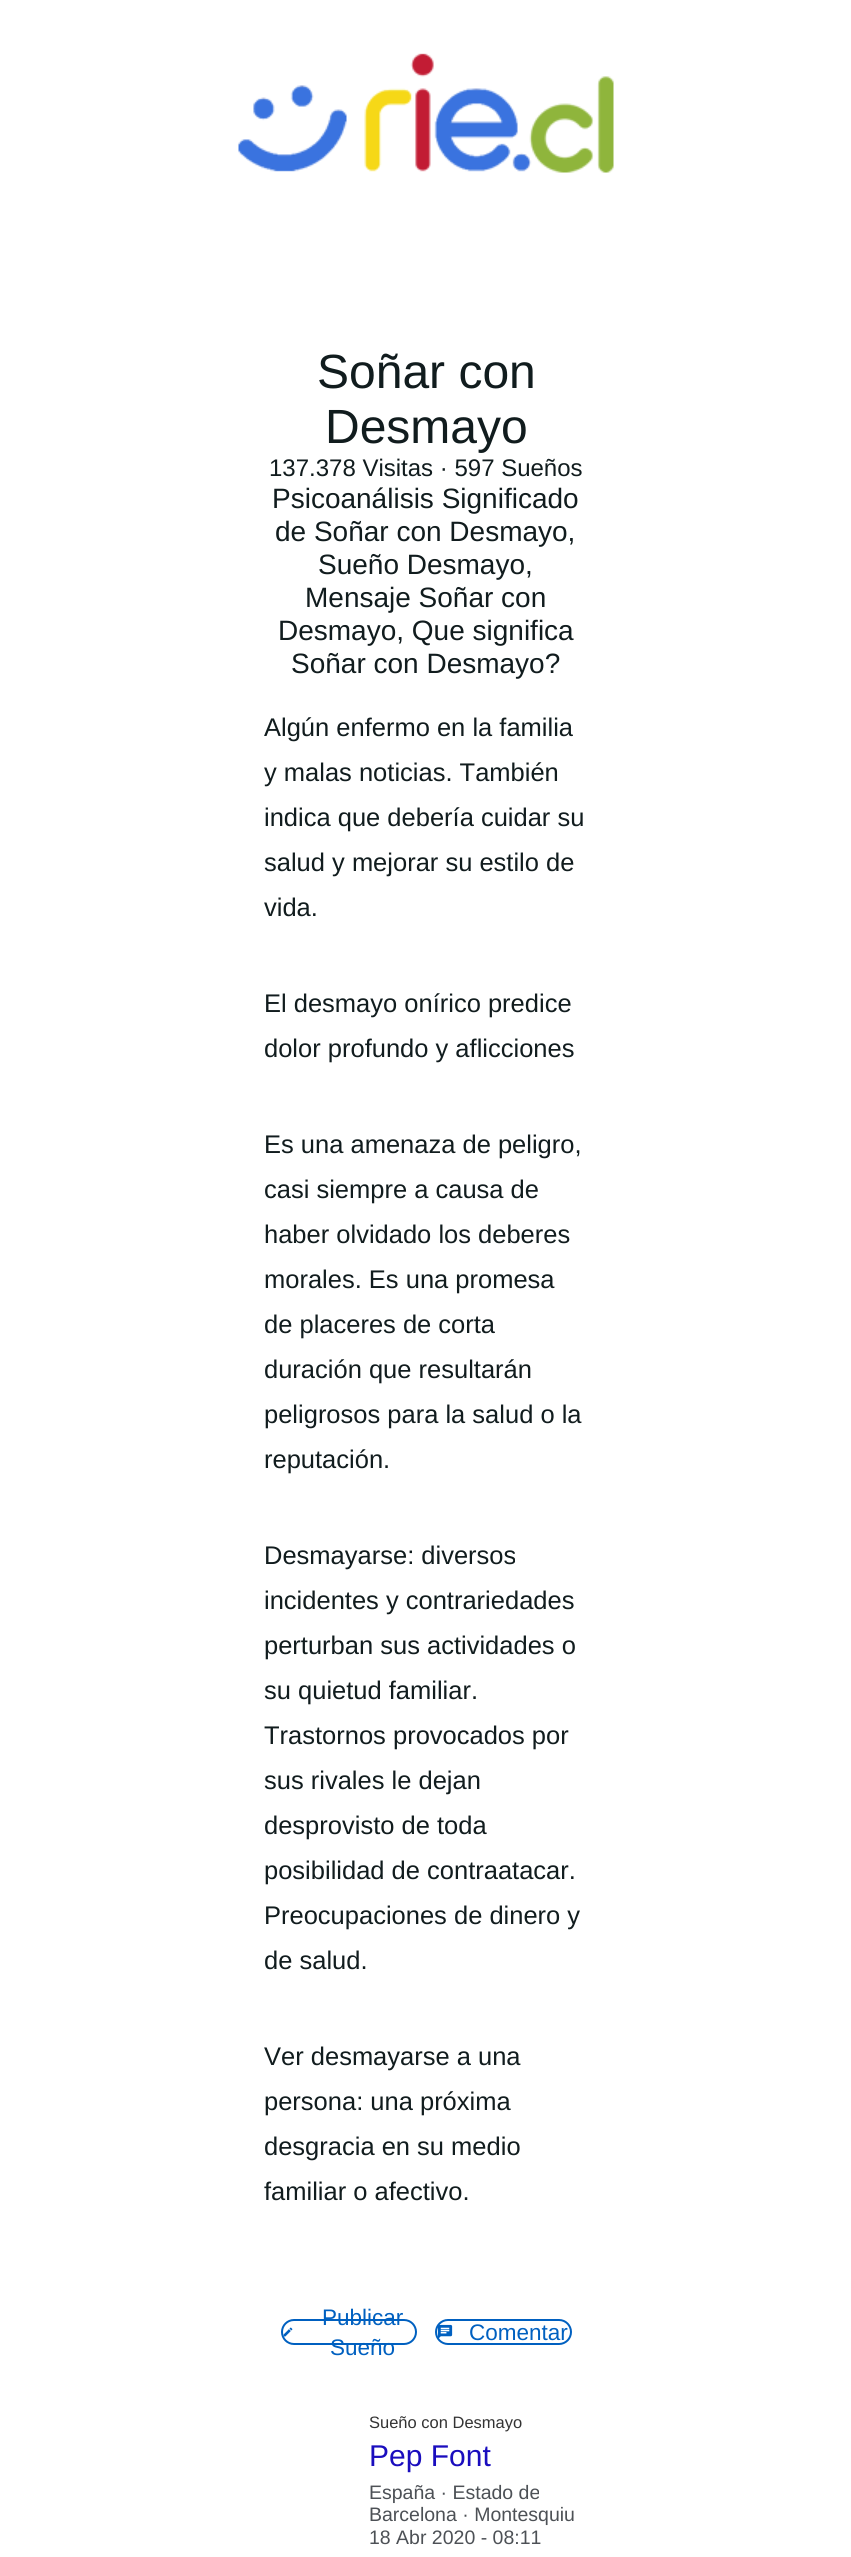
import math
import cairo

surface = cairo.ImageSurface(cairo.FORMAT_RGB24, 851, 2557)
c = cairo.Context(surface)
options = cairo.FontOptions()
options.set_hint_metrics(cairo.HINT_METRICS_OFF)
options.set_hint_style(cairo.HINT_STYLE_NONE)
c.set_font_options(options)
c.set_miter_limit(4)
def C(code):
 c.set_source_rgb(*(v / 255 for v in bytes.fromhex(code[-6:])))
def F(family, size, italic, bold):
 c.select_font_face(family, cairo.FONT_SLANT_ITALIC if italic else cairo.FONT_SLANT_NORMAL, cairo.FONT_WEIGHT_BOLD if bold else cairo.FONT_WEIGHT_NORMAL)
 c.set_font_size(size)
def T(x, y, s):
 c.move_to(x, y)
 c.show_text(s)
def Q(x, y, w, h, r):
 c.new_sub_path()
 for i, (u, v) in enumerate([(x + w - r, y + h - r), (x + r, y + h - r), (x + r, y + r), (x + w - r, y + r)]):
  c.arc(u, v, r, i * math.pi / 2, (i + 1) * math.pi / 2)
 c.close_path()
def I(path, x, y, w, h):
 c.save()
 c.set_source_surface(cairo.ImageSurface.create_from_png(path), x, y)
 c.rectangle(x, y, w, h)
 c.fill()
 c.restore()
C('ffffff')
c.paint()
I('1.png',238,53,376,120)
F('Liberation Sans',48,0,0)
C('111c1e')
T(317,388,'Soñar con')
T(325,443,'Desmayo')
F('Liberation Sans',24,0,0)
T(269,476,'137.378 Visitas · 597 Sueños')
F('Liberation Sans',28,0,0)
T(272,508,'Psicoanálisis Significado')
T(275,541,'de Soñar con Desmayo,')
T(318,574,'Sueño Desmayo,')
T(305,607,'Mensaje Soñar con')
T(278,640,'Desmayo, Que significa')
T(291,673,'Soñar con Desmayo?')
F('Liberation Sans',25.5,0,0)
T(264,736,'Algún enfermo en la familia')
T(264,781,'y malas noticias. También')
T(264,826,'indica que debería cuidar su')
T(264,871,'salud y mejorar su estilo de')
T(264,916,'vida.')
T(264,1012,'El desmayo onírico predice')
T(264,1057,'dolor profundo y aflicciones')
T(264,1153,'Es una amenaza de peligro,')
T(264,1198,'casi siempre a causa de')
T(264,1243,'haber olvidado los deberes')
T(264,1288,'morales. Es una promesa')
T(264,1333,'de placeres de corta')
T(264,1378,'duración que resultarán')
T(264,1423,'peligrosos para la salud o la')
T(264,1468,'reputación.')
T(264,1564,'Desmayarse: diversos')
T(264,1609,'incidentes y contrariedades')
T(264,1654,'perturban sus actividades o')
T(264,1699,'su quietud familiar.')
T(264,1744,'Trastornos provocados por')
T(264,1789,'sus rivales le dejan')
T(264,1834,'desprovisto de toda')
T(264,1879,'posibilidad de contraatacar.')
T(264,1924,'Preocupaciones de dinero y')
T(264,1969,'de salud.')
T(264,2065,'Ver desmayarse a una')
T(264,2110,'persona: una próxima')
T(264,2155,'desgracia en su medio')
T(264,2200,'familiar o afectivo.')
Q(282,2320,134,24,12)
C('0060c0')
c.stroke()
I('2.png',283,2327,10,10)
F('Liberation Sans',22.5,0,0)
T(322,2325,'Publicar')
T(330,2355,'Sueño')
Q(436,2320,135,24,12)
c.stroke()
I('3.png',437,2324,16,15)
T(469,2340,'Comentar')
F('Liberation Sans',16.5,0,0)
C('333333')
T(369,2428,'Sueño con Desmayo')
F('Liberation Sans',30,0,0)
C('1a0dbe')
T(369,2466,'Pep Font')
F('Liberation Sans',19.5,0,0)
C('4d5156')
T(369,2499,'España · Estado de')
T(369,2521,'Barcelona · Montesquiu')
T(369,2544,'18 Abr 2020 - 08:11')
surface.write_to_png('o.png')
